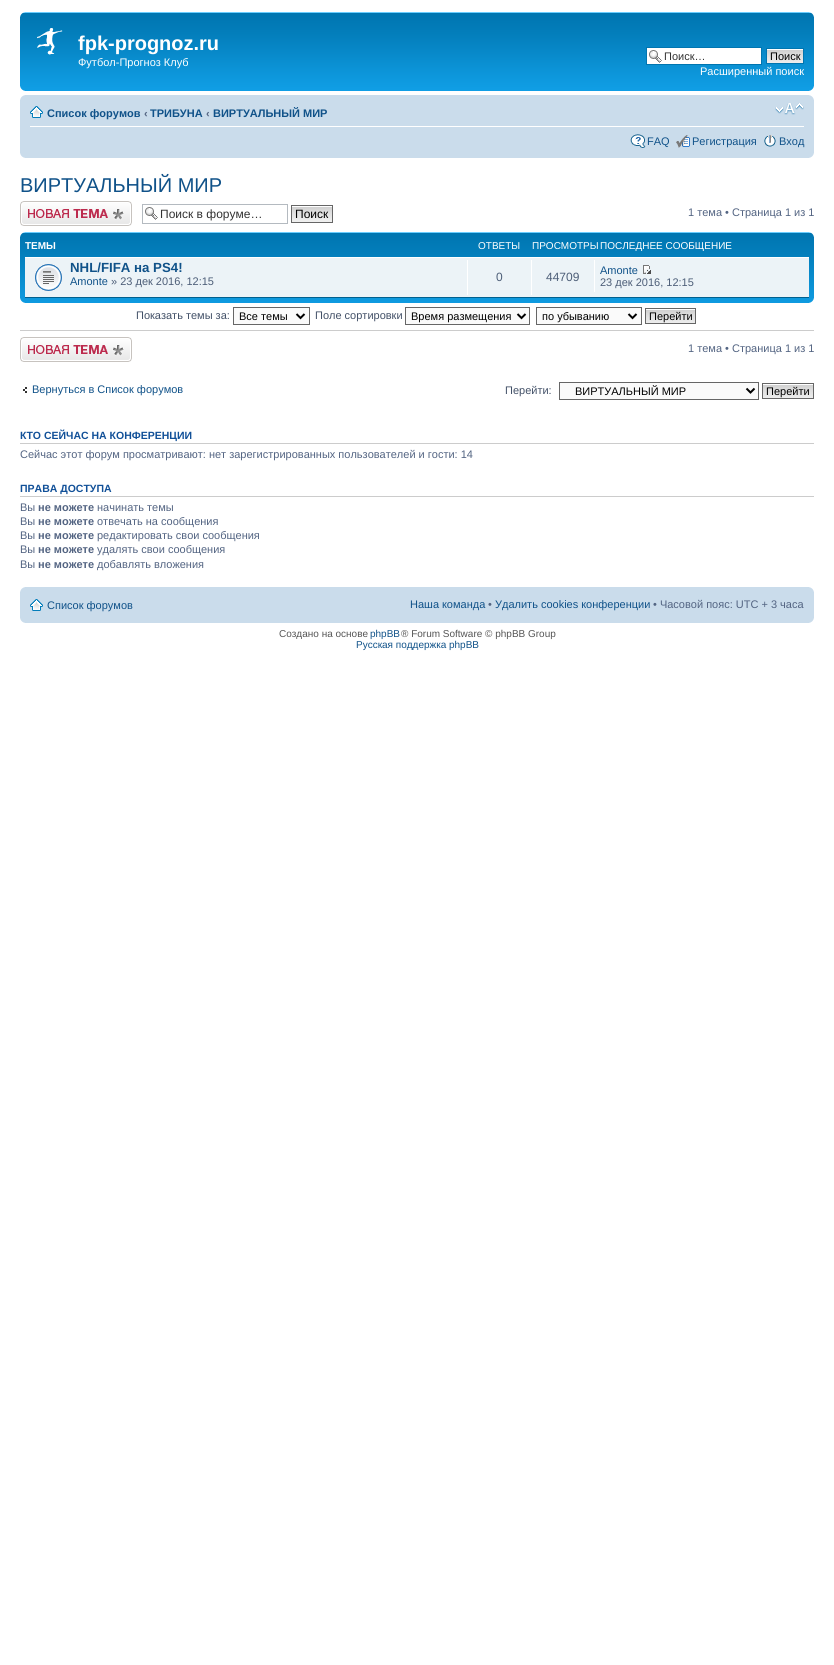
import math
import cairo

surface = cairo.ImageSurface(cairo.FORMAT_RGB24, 834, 1665)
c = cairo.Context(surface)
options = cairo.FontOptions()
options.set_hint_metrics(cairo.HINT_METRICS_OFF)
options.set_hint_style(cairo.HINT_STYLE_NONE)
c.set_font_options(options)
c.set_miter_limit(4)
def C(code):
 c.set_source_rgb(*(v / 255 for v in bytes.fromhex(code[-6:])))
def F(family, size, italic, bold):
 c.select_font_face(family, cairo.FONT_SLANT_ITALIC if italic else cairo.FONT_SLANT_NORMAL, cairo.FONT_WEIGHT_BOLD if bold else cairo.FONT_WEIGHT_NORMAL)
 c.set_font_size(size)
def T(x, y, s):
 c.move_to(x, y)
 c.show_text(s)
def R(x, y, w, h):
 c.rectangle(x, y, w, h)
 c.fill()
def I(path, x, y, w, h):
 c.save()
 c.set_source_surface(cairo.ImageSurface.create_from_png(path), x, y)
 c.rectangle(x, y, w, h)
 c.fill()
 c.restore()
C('ffffff')
c.paint()
I('1.png',20,12,794,79)
I('2.png',20,12,5,5)
I('3.png',809,12,5,5)
I('4.png',37,28,26,27)
F('Liberation Sans',20,0,1)
C('ffffff')
T(78,50,'fpk-prognoz.ru')
F('Liberation Sans',11,0,0)
T(78,66,'Футбол-Прогноз Клуб')
R(647,48,114,16)
I('5.png',649,50,13,13)
c.rectangle(646.5,47.5,115,17)
C('0075b0')
c.set_line_width(1)
c.stroke()
C('333333')
T(664,60,'Поиск…')
I('6.png',767,49,36,14)
c.rectangle(766.5,48.5,37,15)
C('0075b0')
c.stroke()
C('000000')
T(770,60,'Поиск')
C('ffffff')
T(700,75,'Расширенный поиск')
I('7.png',20,86,5,5)
I('8.png',809,86,5,5)
C('cadceb')
R(20,95,794,63)
I('9.png',20,95,5,5)
I('10.png',809,95,5,5)
C('ffffff')
R(30,126,774,1)
I('11.png',30,106,13,12)
F('Liberation Sans',11,0,1)
C('105289')
T(47,117,'Список форумов')
C('536482')
T(144,117,'‹')
C('105289')
T(150,117,'ТРИБУНА')
C('536482')
T(206,117,'‹')
C('105289')
T(213,117,'ВИРТУАЛЬНЫЙ МИР')
I('12.png',775,103,29,12)
I('13.png',630,134,16,14)
F('Liberation Sans',11,0,0)
T(647,145,'FAQ')
I('14.png',676,135,14,13)
T(692,145,'Регистрация')
I('15.png',764,135,12,12)
T(779,145,'Вход')
I('16.png',20,153,5,5)
I('17.png',809,153,5,5)
F('Liberation Sans',20,0,0)
T(20,192,'ВИРТУАЛЬНЫЙ МИР')
I('18.png',20,201,112,25)
I('5.png',145,207,13,13)
c.rectangle(142.5,204.5,145,19)
C('b4bac0')
c.stroke()
F('Liberation Sans',12,0,0)
C('333333')
T(160,218,'Поиск в форуме…')
I('19.png',292,206,40,16)
c.rectangle(291.5,205.5,41,17)
C('666666')
c.stroke()
C('000000')
T(295,218,'Поиск')
F('Liberation Sans',11,0,0)
C('536482')
T(688,216,'1 тема • Страница 1 из 1')
I('20.png',20,232,794,71)
I('2.png',20,232,5,5)
I('3.png',809,232,5,5)
F('Liberation Sans',10,0,1)
C('ffffff')
T(25,249,'ТЕМЫ')
F('Liberation Sans',10,0,0)
T(478,249,'ОТВЕТЫ')
T(532,249,'ПРОСМОТРЫ')
T(600,249,'ПОСЛЕДНЕЕ СООБЩЕНИЕ')
C('ecf3f7')
R(25,258,784,39)
C('ffffff')
R(25,257,784,1)
C('00608f')
R(25,297,784,1)
I('21.png',35,264,27,27)
F('Liberation Sans',13.25,0,1)
C('105289')
T(70,272,'NHL/FIFA на PS4!')
F('Liberation Sans',11,0,0)
T(70,285,'Amonte')
C('4c5d77')
T(111,285,'» 23 дек 2016, 12:15')
C('ffffff')
R(467,260,1,35)
F('Liberation Sans',12,0,0)
C('4c5d77')
T(496,281,'0')
C('ffffff')
R(531,260,1,35)
C('4c5d77')
T(546,281,'44709')
C('ffffff')
R(594,260,1,32)
F('Liberation Sans',11,0,0)
C('105289')
T(600,274,'Amonte')
I('22.png',643,265,8,9)
C('4c5d77')
T(600,286,'23 дек 2016, 12:15')
I('23.png',20,298,5,5)
I('24.png',809,298,5,5)
C('425067')
T(136,319,'Показать темы за:')
C('fafafa')
c.rectangle(233.5,307.5,76,17)
c.fill_preserve()
C('666666')
c.stroke()
c.new_path()
c.move_to(296.5,314)
c.line_to(300.5,318)
c.line_to(304.5,314)
C('000000')
c.set_line_width(2)
c.stroke()
T(239,320,'Все темы')
C('425067')
T(315,319,'Поле сортировки')
C('fafafa')
c.rectangle(405.5,307.5,124,17)
c.fill_preserve()
C('666666')
c.set_line_width(1)
c.stroke()
c.new_path()
c.move_to(517.5,314)
c.line_to(521.5,318)
c.line_to(525.5,314)
C('000000')
c.set_line_width(2)
c.stroke()
T(411,320,'Время размещения')
C('fafafa')
c.rectangle(536.5,307.5,105,17)
c.fill_preserve()
C('666666')
c.set_line_width(1)
c.stroke()
c.new_path()
c.move_to(628.5,314)
c.line_to(632.5,318)
c.line_to(636.5,314)
C('000000')
c.set_line_width(2)
c.stroke()
T(542,320,'по убыванию')
I('25.png',646,309,49,14)
c.rectangle(645.5,308.5,50,15)
C('666666')
c.set_line_width(1)
c.stroke()
C('000000')
T(649,320,'Перейти')
C('cccccc')
R(20,330,794,1)
I('18.png',20,337,112,25)
C('536482')
T(688,352,'1 тема • Страница 1 из 1')
I('26.png',23,387,4,6)
C('105289')
T(32,393,'Вернуться в Список форумов')
C('425067')
T(505,394,'Перейти:')
C('fafafa')
c.rectangle(559.5,382.5,199,17)
c.fill_preserve()
C('666666')
c.stroke()
c.new_path()
c.move_to(746.5,388.5)
c.line_to(750.5,392.5)
c.line_to(754.5,388.5)
C('000000')
c.set_line_width(2)
c.stroke()
T(575,395,'ВИРТУАЛЬНЫЙ МИР')
I('27.png',763,384,50,14)
c.rectangle(762.5,383.5,51,15)
C('666666')
c.set_line_width(1)
c.stroke()
C('000000')
T(766,395,'Перейти')
C('cccccc')
R(20,443,794,1)
F('Liberation Sans',10.5,0,1)
C('115098')
T(20,439,'КТО СЕЙЧАС НА КОНФЕРЕНЦИИ')
F('Liberation Sans',11,0,0)
C('536482')
T(20,458,'Сейчас этот форум просматривают: нет зарегистрированных пользователей и гости: 14')
C('cccccc')
R(20,496,794,1)
F('Liberation Sans',10.5,0,1)
C('115098')
T(20,492,'ПРАВА ДОСТУПА')
F('Liberation Sans',11,0,0)
C('536482')
T(20,511,'Вы')
F('Liberation Sans',11,0,1)
T(38,511,'не можете')
F('Liberation Sans',11,0,0)
T(97,511,'начинать темы')
T(20,525,'Вы')
F('Liberation Sans',11,0,1)
T(38,525,'не можете')
F('Liberation Sans',11,0,0)
T(97,525,'отвечать на сообщения')
T(20,539,'Вы')
F('Liberation Sans',11,0,1)
T(38,539,'не можете')
F('Liberation Sans',11,0,0)
T(97,539,'редактировать свои сообщения')
T(20,553,'Вы')
F('Liberation Sans',11,0,1)
T(38,553,'не можете')
F('Liberation Sans',11,0,0)
T(97,553,'удалять свои сообщения')
T(20,568,'Вы')
F('Liberation Sans',11,0,1)
T(38,568,'не можете')
F('Liberation Sans',11,0,0)
T(97,568,'добавлять вложения')
C('cadceb')
R(20,587,794,36)
I('9.png',20,587,5,5)
I('10.png',809,587,5,5)
I('11.png',30,599,13,12)
C('105289')
T(47,609,'Список форумов')
T(410,608,'Наша команда')
C('536482')
T(488,608,'•')
C('105289')
T(495,608,'Удалить cookies конференции')
C('536482')
T(653,608,'• Часовой пояс: UTC + 3 часа')
I('16.png',20,618,5,5)
I('17.png',809,618,5,5)
F('Liberation Sans',10,0,0)
C('555555')
T(279,637,'Создано на основе')
C('105289')
T(370,637,'phpBB')
C('555555')
T(401,637,'® Forum Software © phpBB Group')
C('105289')
T(356,648,'Русская поддержка phpBB')
surface.write_to_png('o.png')
